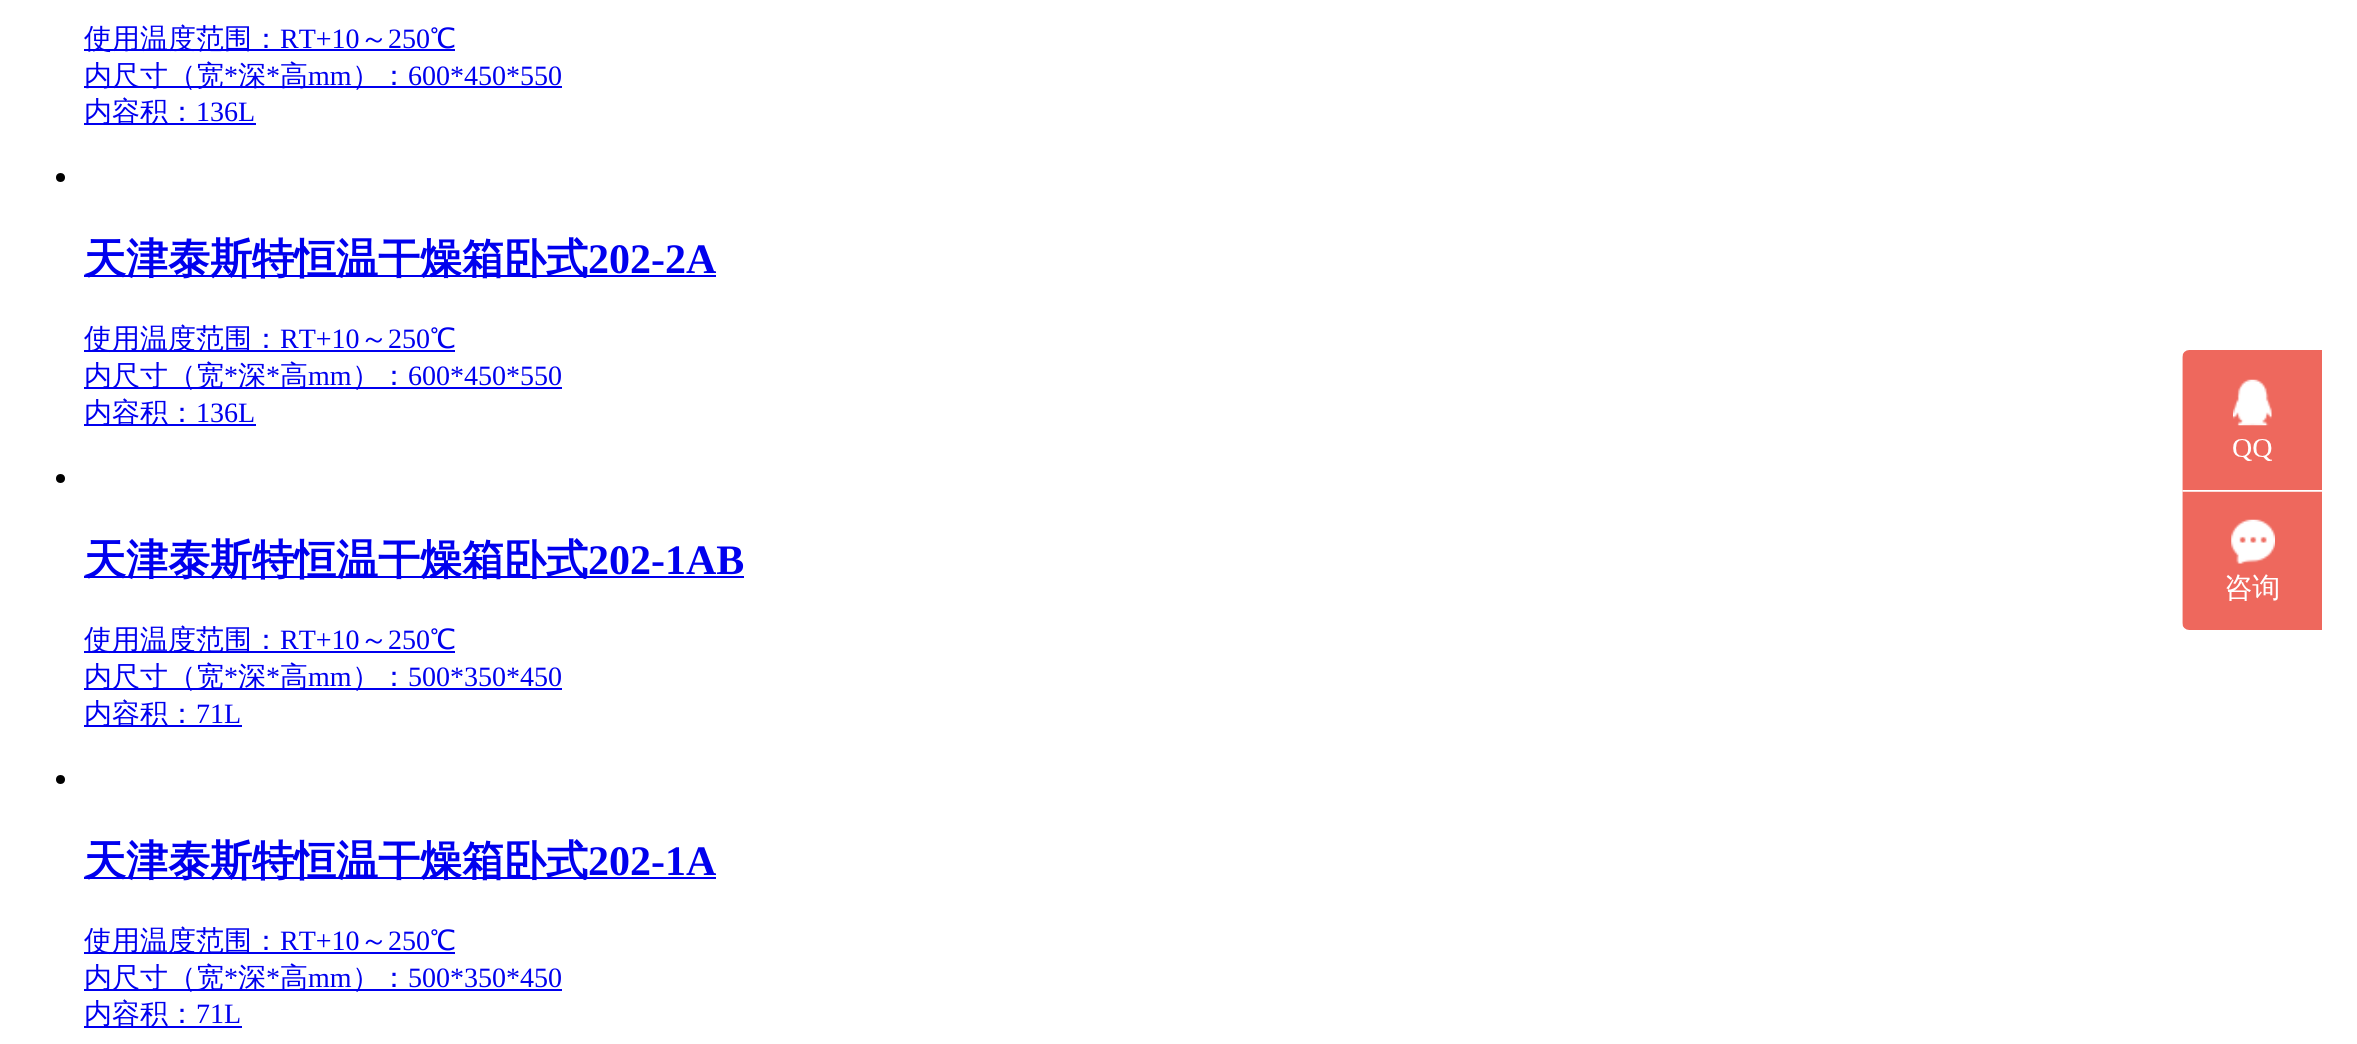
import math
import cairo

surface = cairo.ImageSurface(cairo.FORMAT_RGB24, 2357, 1044)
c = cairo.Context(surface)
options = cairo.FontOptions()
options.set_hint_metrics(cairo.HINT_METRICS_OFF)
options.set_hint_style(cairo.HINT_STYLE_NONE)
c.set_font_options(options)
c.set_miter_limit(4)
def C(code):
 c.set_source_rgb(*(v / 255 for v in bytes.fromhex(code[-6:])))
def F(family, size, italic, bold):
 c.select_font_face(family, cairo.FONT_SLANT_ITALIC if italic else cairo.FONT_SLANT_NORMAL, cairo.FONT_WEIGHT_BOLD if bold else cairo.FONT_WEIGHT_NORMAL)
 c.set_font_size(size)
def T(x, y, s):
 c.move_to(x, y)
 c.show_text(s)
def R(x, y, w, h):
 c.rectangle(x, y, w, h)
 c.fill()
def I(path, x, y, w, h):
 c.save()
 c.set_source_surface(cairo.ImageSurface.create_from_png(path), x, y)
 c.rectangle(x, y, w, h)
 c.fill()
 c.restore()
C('ffffff')
c.paint()
C('0000ee')
R(84,49,371,2)
F('WenQuanYi Zen Hei Medium',28,0,0)
T(84,48,'使用温度范围：')
F('Liberation Serif',28,0,0)
T(280,48,'RT+10')
F('WenQuanYi Zen Hei Medium',28,0,0)
T(360,48,'～')
F('Liberation Serif',28,0,0)
T(388,48,'250')
F('WenQuanYi Zen Hei Medium',28,0,0)
T(430,48,'℃')
R(84,86,478,2)
T(84,85,'内尺寸（宽')
F('Liberation Serif',28,0,0)
T(224,85,'*')
F('WenQuanYi Zen Hei Medium',28,0,0)
T(238,85,'深')
F('Liberation Serif',28,0,0)
T(266,85,'*')
F('WenQuanYi Zen Hei Medium',28,0,0)
T(280,85,'高')
F('Liberation Serif',28,0,0)
T(308,85,'mm')
F('WenQuanYi Zen Hei Medium',28,0,0)
T(352,85,'）：')
F('Liberation Serif',28,0,0)
T(408,85,'600*450*550')
R(84,123,172,2)
F('WenQuanYi Zen Hei Medium',28,0,0)
T(84,121,'内容积：')
F('Liberation Serif',28,0,0)
T(196,121,'136L')
C('000000')
c.new_path()
c.arc(60.5,177.5,4.5,0,2 * math.pi)
c.fill()
C('0000ee')
R(84,275,632,2)
F('WenQuanYi Zen Hei',42,0,1)
T(84,273,'天津泰斯特恒温干燥箱卧式')
F('Liberation Serif',42,0,1)
T(588,273,'202-2A')
R(84,350,371,2)
F('WenQuanYi Zen Hei Medium',28,0,0)
T(84,348,'使用温度范围：')
F('Liberation Serif',28,0,0)
T(280,348,'RT+10')
F('WenQuanYi Zen Hei Medium',28,0,0)
T(360,348,'～')
F('Liberation Serif',28,0,0)
T(388,348,'250')
F('WenQuanYi Zen Hei Medium',28,0,0)
T(430,348,'℃')
R(84,387,478,2)
T(84,385,'内尺寸（宽')
F('Liberation Serif',28,0,0)
T(224,385,'*')
F('WenQuanYi Zen Hei Medium',28,0,0)
T(238,385,'深')
F('Liberation Serif',28,0,0)
T(266,385,'*')
F('WenQuanYi Zen Hei Medium',28,0,0)
T(280,385,'高')
F('Liberation Serif',28,0,0)
T(308,385,'mm')
F('WenQuanYi Zen Hei Medium',28,0,0)
T(352,385,'）：')
F('Liberation Serif',28,0,0)
T(408,385,'600*450*550')
R(84,424,172,2)
F('WenQuanYi Zen Hei Medium',28,0,0)
T(84,422,'内容积：')
F('Liberation Serif',28,0,0)
T(196,422,'136L')
C('000000')
c.new_path()
c.arc(60.5,478.5,4.5,0,2 * math.pi)
c.fill()
C('0000ee')
R(84,576,660,2)
F('WenQuanYi Zen Hei',42,0,1)
T(84,574,'天津泰斯特恒温干燥箱卧式')
F('Liberation Serif',42,0,1)
T(588,574,'202-1AB')
R(84,651,371,2)
F('WenQuanYi Zen Hei Medium',28,0,0)
T(84,649,'使用温度范围：')
F('Liberation Serif',28,0,0)
T(280,649,'RT+10')
F('WenQuanYi Zen Hei Medium',28,0,0)
T(360,649,'～')
F('Liberation Serif',28,0,0)
T(388,649,'250')
F('WenQuanYi Zen Hei Medium',28,0,0)
T(430,649,'℃')
R(84,688,478,2)
T(84,686,'内尺寸（宽')
F('Liberation Serif',28,0,0)
T(224,686,'*')
F('WenQuanYi Zen Hei Medium',28,0,0)
T(238,686,'深')
F('Liberation Serif',28,0,0)
T(266,686,'*')
F('WenQuanYi Zen Hei Medium',28,0,0)
T(280,686,'高')
F('Liberation Serif',28,0,0)
T(308,686,'mm')
F('WenQuanYi Zen Hei Medium',28,0,0)
T(352,686,'）：')
F('Liberation Serif',28,0,0)
T(408,686,'500*350*450')
R(84,725,158,2)
F('WenQuanYi Zen Hei Medium',28,0,0)
T(84,723,'内容积：')
F('Liberation Serif',28,0,0)
T(196,723,'71L')
C('000000')
c.new_path()
c.arc(60.5,779.5,4.5,0,2 * math.pi)
c.fill()
C('0000ee')
R(84,877,632,2)
F('WenQuanYi Zen Hei',42,0,1)
T(84,875,'天津泰斯特恒温干燥箱卧式')
F('Liberation Serif',42,0,1)
T(588,875,'202-1A')
R(84,952,371,2)
F('WenQuanYi Zen Hei Medium',28,0,0)
T(84,950,'使用温度范围：')
F('Liberation Serif',28,0,0)
T(280,950,'RT+10')
F('WenQuanYi Zen Hei Medium',28,0,0)
T(360,950,'～')
F('Liberation Serif',28,0,0)
T(388,950,'250')
F('WenQuanYi Zen Hei Medium',28,0,0)
T(430,950,'℃')
R(84,989,478,2)
T(84,987,'内尺寸（宽')
F('Liberation Serif',28,0,0)
T(224,987,'*')
F('WenQuanYi Zen Hei Medium',28,0,0)
T(238,987,'深')
F('Liberation Serif',28,0,0)
T(266,987,'*')
F('WenQuanYi Zen Hei Medium',28,0,0)
T(280,987,'高')
F('Liberation Serif',28,0,0)
T(308,987,'mm')
F('WenQuanYi Zen Hei Medium',28,0,0)
T(352,987,'）：')
F('Liberation Serif',28,0,0)
T(408,987,'500*350*450')
R(84,1026,158,2)
F('WenQuanYi Zen Hei Medium',28,0,0)
T(84,1023,'内容积：')
F('Liberation Serif',28,0,0)
T(196,1023,'71L')
I('1.png',2182,350,140,280)
surface.write_to_png('o.png')
